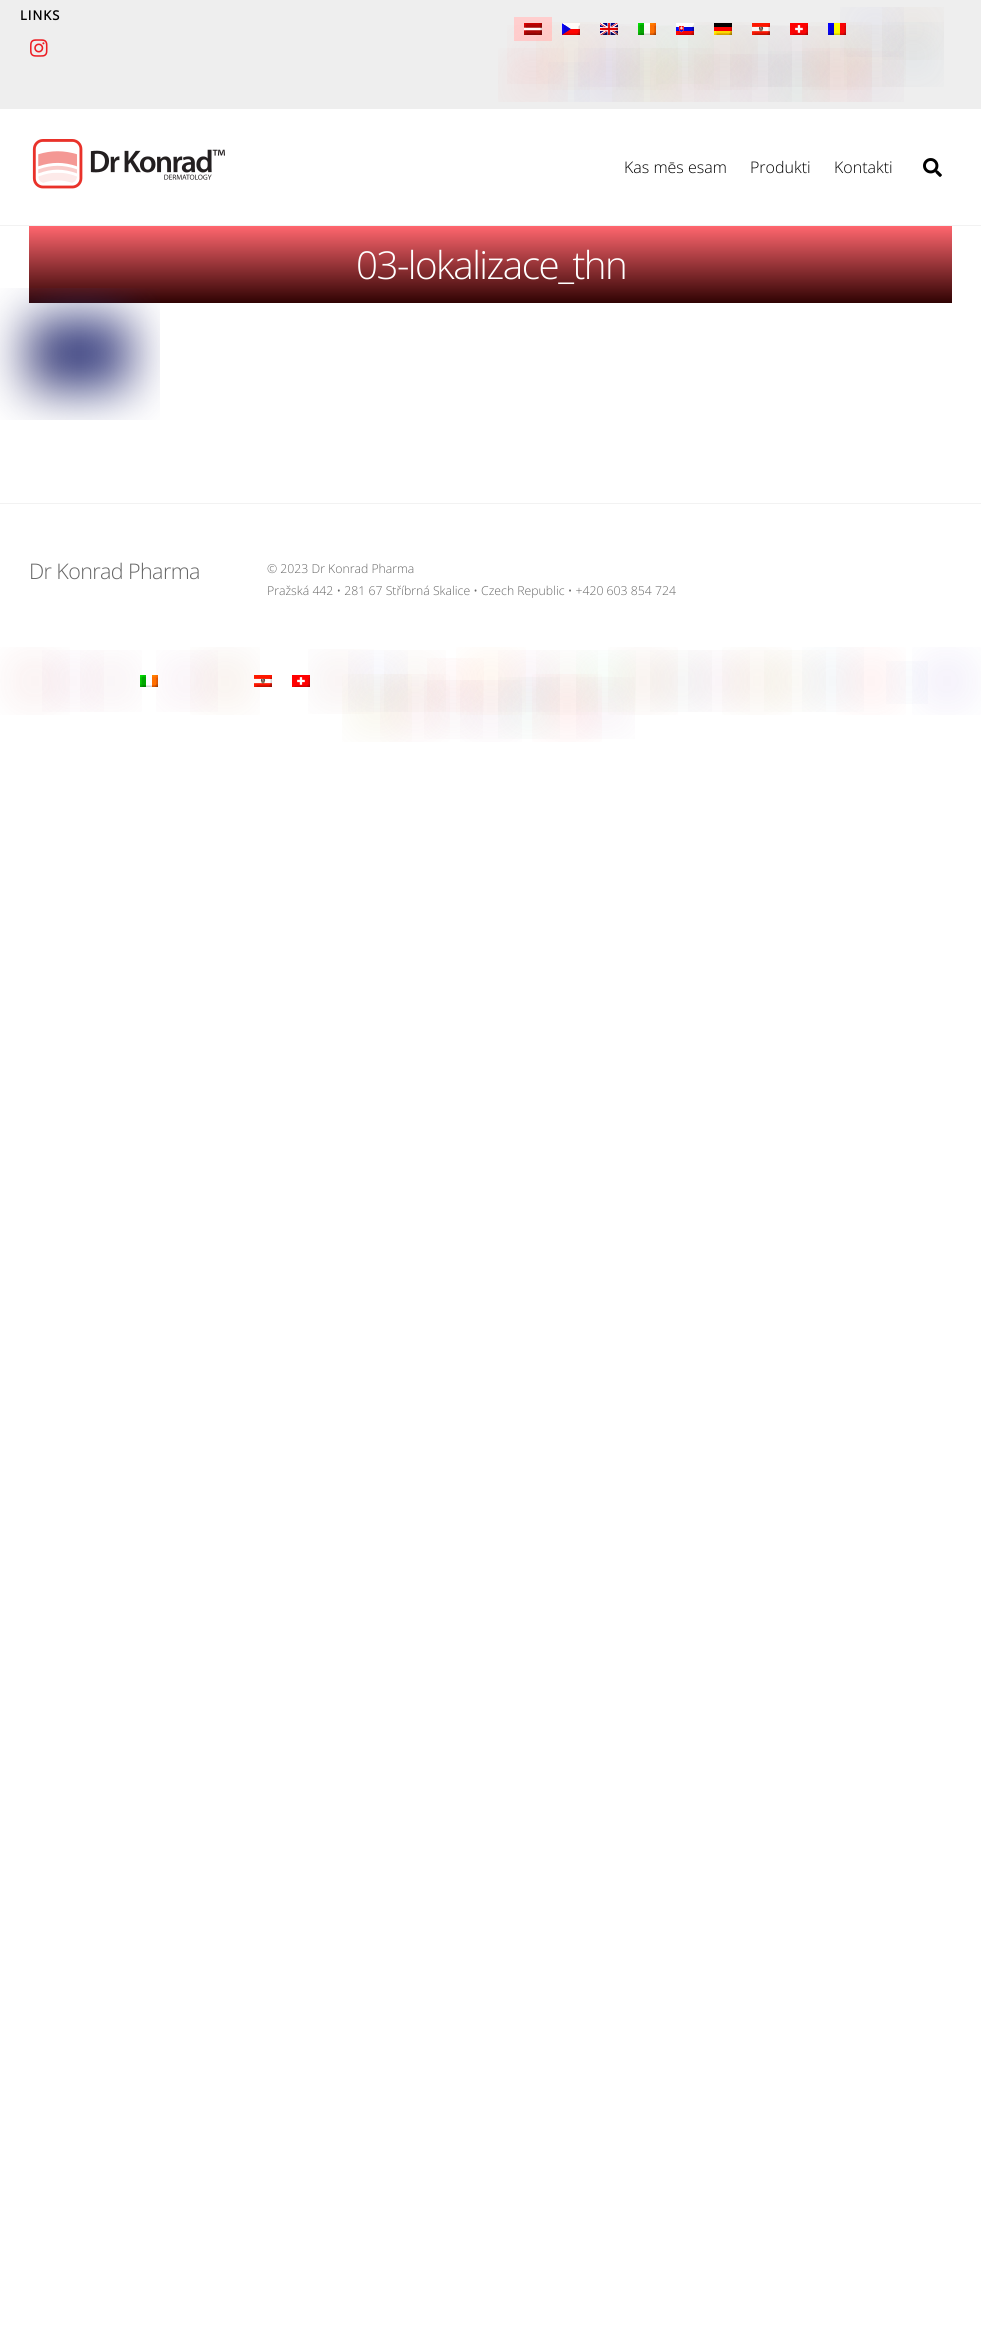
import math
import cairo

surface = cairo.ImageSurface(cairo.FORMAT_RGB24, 981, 2332)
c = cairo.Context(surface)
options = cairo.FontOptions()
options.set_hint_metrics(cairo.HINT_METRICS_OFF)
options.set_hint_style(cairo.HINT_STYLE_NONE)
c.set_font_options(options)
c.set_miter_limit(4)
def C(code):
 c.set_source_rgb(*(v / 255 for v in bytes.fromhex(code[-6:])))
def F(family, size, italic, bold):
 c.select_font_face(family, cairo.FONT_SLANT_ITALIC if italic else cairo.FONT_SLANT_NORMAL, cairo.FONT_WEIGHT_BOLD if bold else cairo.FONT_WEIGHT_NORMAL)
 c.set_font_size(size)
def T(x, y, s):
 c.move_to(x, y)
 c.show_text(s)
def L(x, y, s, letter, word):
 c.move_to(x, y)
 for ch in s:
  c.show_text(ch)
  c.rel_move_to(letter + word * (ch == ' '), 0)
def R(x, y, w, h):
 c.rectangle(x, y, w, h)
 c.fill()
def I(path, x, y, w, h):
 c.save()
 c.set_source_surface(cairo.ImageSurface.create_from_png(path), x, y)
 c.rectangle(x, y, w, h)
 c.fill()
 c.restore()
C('ffffff')
c.paint()
C('f2f2f2')
R(0,225,981,1)
C('eeeeee')
R(0,0,981,109)
F('Open Sans',13,0,1)
C('000000')
L(20,20,'LINKS',1,0)
I('1.png',30,39,18,18)
C('ffcece')
R(514,17,38,24)
I('2.png',524,23,18,12)
I('7.png',562,23,18,12)
I('8.png',600,23,18,12)
I('16.png',507,25,57,59)
I('3.png',536,22,70,68)
I('10.png',676,23,18,12)
I('11.png',714,23,18,12)
I('12.png',752,23,18,12)
I('9.png',638,23,18,12)
I('17.png',578,24,62,63)
I('18.png',616,26,62,64)
I('19.png',656,25,58,59)
I('4.png',688,22,70,68)
I('22.png',828,23,18,12)
I('5.png',840,7,64,50)
I('6.png',882,7,62,53)
I('13.png',790,23,18,12)
I('20.png',730,25,62,62)
I('21.png',768,26,62,61)
I('14.png',802,22,70,68)
I('23.png',844,25,62,62)
I('15.png',882,22,62,65)
I('24.png',498,48,70,54)
I('25.png',548,62,42,40)
I('26.png',574,48,70,54)
I('27.png',612,48,70,54)
I('28.png',650,48,70,54)
I('29.png',694,54,58,48)
I('30.png',730,54,62,48)
I('31.png',768,51,62,51)
I('32.png',802,48,70,54)
I('33.png',847,51,57,51)
I('34.png',32,139,193,50)
F('Open Sans Light',16,0,0)
C('000000')
T(624,173,'Kas mēs esam')
T(750,173,'Produkti')
T(834,173,'Kontakti')
I('35.png',923,158,19,19)
gradient = cairo.LinearGradient(491,226,491,303)
gradient.add_color_stop_rgba(0,1,0.4,0.431,1)
gradient.add_color_stop_rgba(1,0.188,0.012,0.012,1)
c.set_source(gradient)
R(29,226,923,77)
F('Open Sans Light',38.5,0,0)
C('ffffff')
L(356,279,'03-lokalizace_thn',-1.5,0)
I('36.png',0,288,160,132)
C('f2f2f2')
R(0,503,981,1)
F('Open Sans Light',21.5,0,0)
C('666666')
L(29,579,'Dr Konrad Pharma',-.6,0)
F('Open Sans Light',12.25,0,0)
T(267,573,'© 2023 Dr Konrad Pharma')
T(267,595,'Pražská 442 • 281 67 Stříbrná Skalice • Czech Republic • +420 603 854 724')
I('37.png',0,647,70,68)
I('38.png',42,650,62,62)
I('59.png',140,675,18,12)
I('39.png',80,650,62,62)
I('40.png',156,650,62,62)
I('60.png',254,675,18,12)
I('41.png',190,647,70,68)
I('61.png',292,675,18,12)
I('42.png',308,649,66,65)
I('43.png',348,650,60,62)
I('44.png',384,650,62,62)
I('45.png',427,658,57,54)
I('46.png',456,647,70,68)
I('47.png',498,650,62,62)
I('48.png',536,650,62,65)
I('49.png',576,650,60,62)
I('50.png',608,647,70,68)
I('51.png',650,650,62,62)
I('52.png',688,650,62,62)
I('53.png',722,647,70,68)
I('54.png',764,650,62,62)
I('55.png',802,647,62,65)
I('56.png',836,647,70,68)
I('57.png',886,661,42,43)
I('58.png',912,647,69,68)
I('62.png',342,674,70,68)
I('63.png',380,674,70,68)
I('64.png',424,680,59,59)
I('65.png',460,680,62,62)
I('66.png',498,677,62,62)
I('67.png',532,674,70,68)
I('68.png',576,677,59,62)
surface.write_to_png('o.png')
